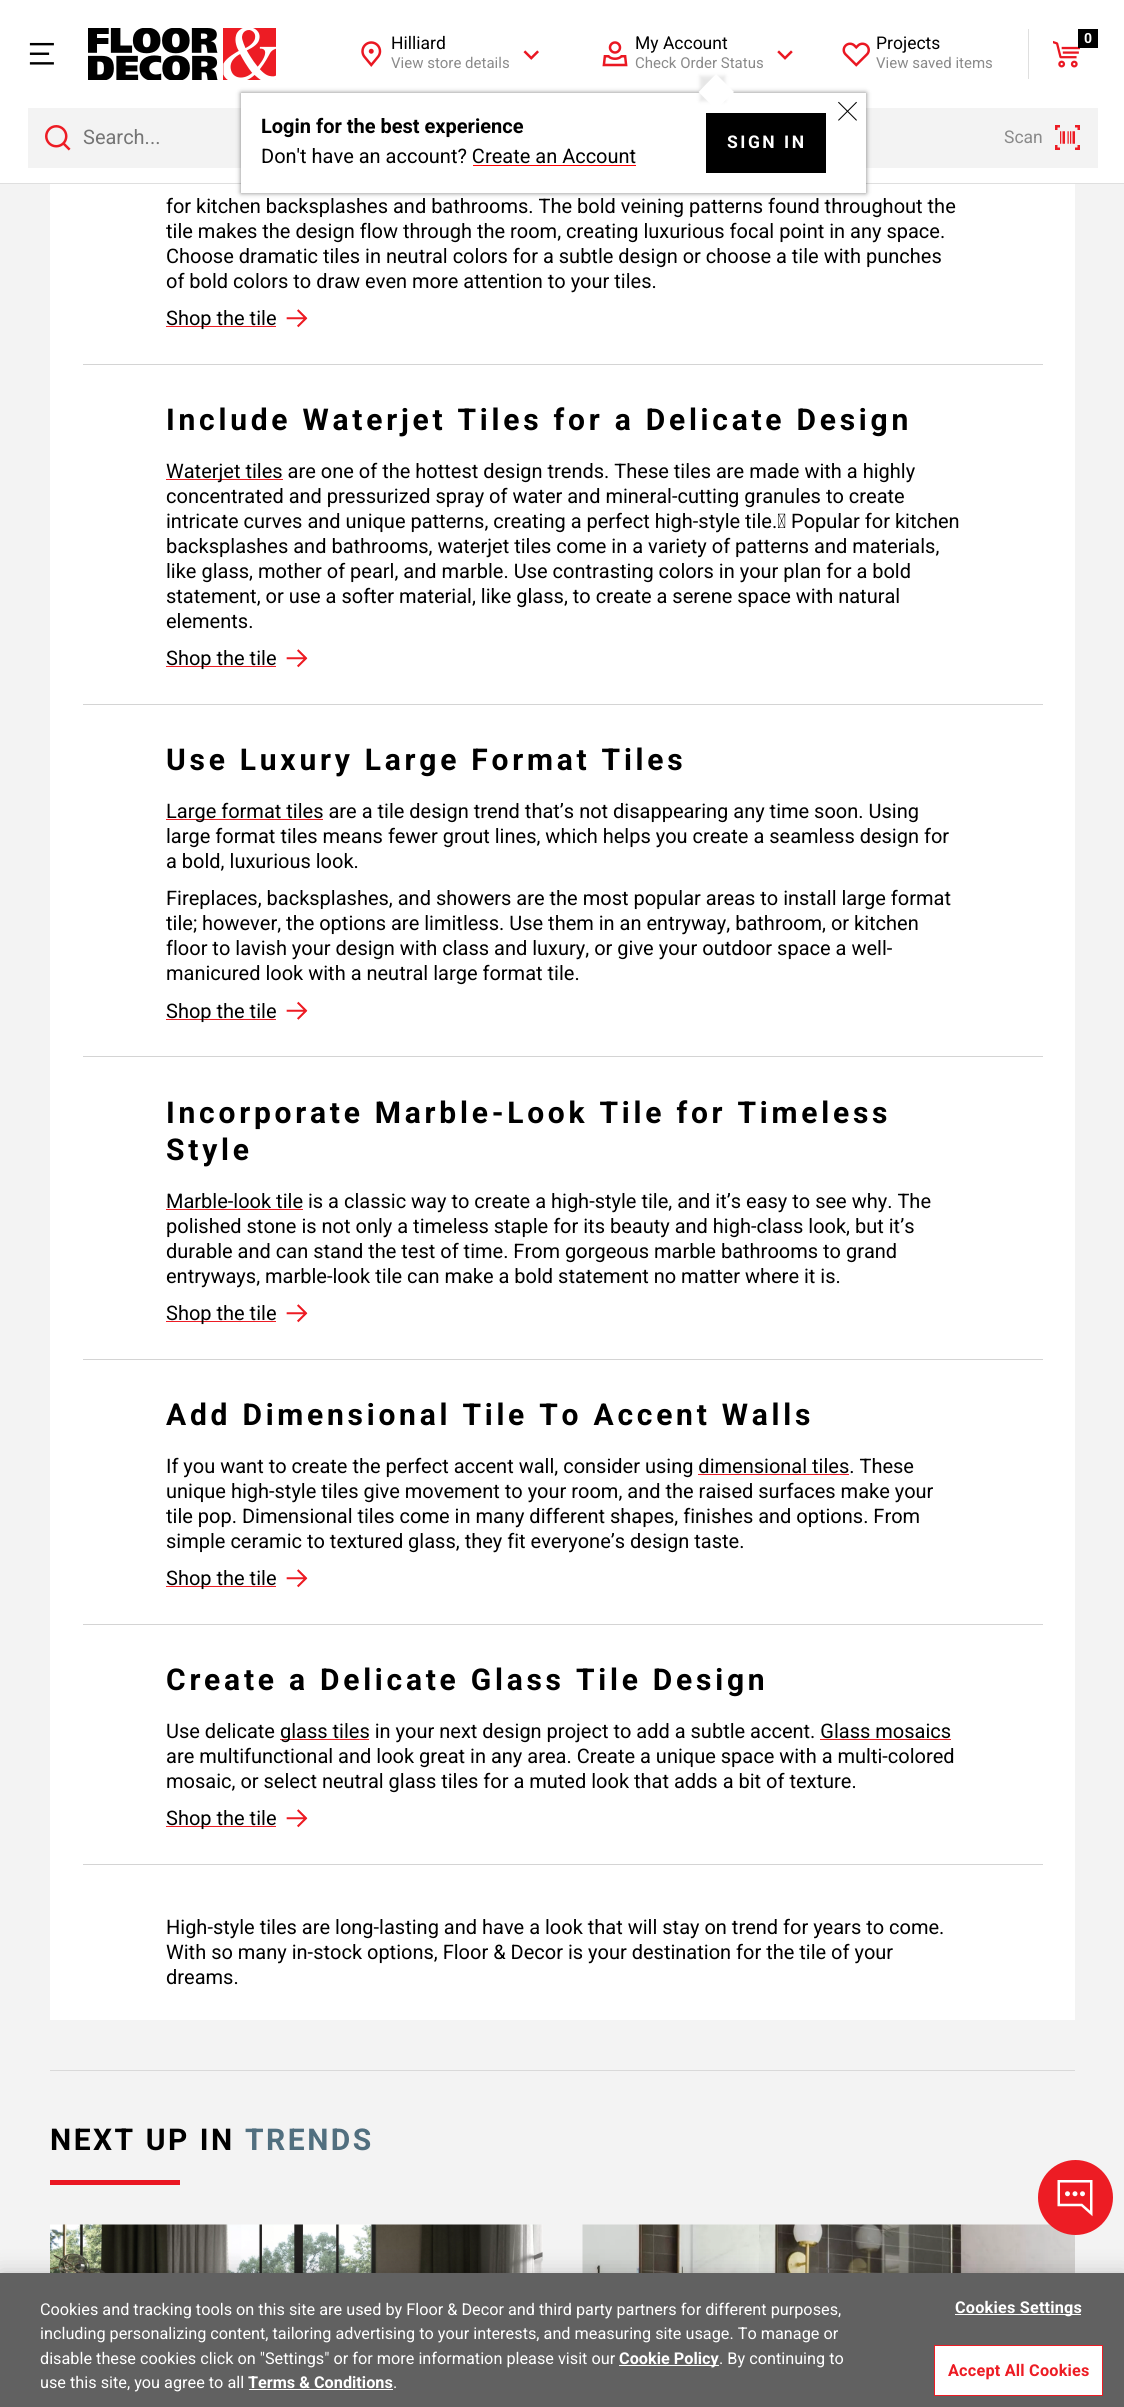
import math
import cairo

surface = cairo.ImageSurface(cairo.FORMAT_RGB24, 1124, 2407)
c = cairo.Context(surface)
options = cairo.FontOptions()
options.set_hint_metrics(cairo.HINT_METRICS_OFF)
options.set_hint_style(cairo.HINT_STYLE_NONE)
c.set_font_options(options)
c.set_miter_limit(4)
def C(code):
 c.set_source_rgb(*(v / 255 for v in bytes.fromhex(code[-6:])))
def F(family, size, italic, bold):
 c.select_font_face(family, cairo.FONT_SLANT_ITALIC if italic else cairo.FONT_SLANT_NORMAL, cairo.FONT_WEIGHT_BOLD if bold else cairo.FONT_WEIGHT_NORMAL)
 c.set_font_size(size)
def T(x, y, s):
 c.move_to(x, y)
 c.show_text(s)
def L(x, y, s, letter, word):
 c.move_to(x, y)
 for ch in s:
  c.show_text(ch)
  c.rel_move_to(letter + word * (ch == ' '), 0)
def R(x, y, w, h):
 c.rectangle(x, y, w, h)
 c.fill()
def Q(x, y, w, h, r):
 c.new_sub_path()
 for i, (u, v) in enumerate([(x + w - r, y + h - r), (x + r, y + h - r), (x + r, y + r), (x + w - r, y + r)]):
  c.arc(u, v, r, i * math.pi / 2, (i + 1) * math.pi / 2)
 c.close_path()
def S(x, y, w, h, r, blur, alpha):
 c.push_group_with_content(cairo.CONTENT_ALPHA)
 c.set_operator(cairo.OPERATOR_SOURCE)
 for i in range(15, -16, -2):
  e = blur * i / 6
  if min(w, h) + 2 * e > 0:
   c.set_source_rgba(0, 0, 0, alpha * math.erfc((i - 1) / 8.5) / 2)
   Q(x - e, y - e, w + 2 * e, h + 2 * e, max(0, min(r + e + blur * .6, min(w, h) / 2 + e)))
   c.fill()
 c.mask(c.pop_group())
def I(path, x, y, w, h):
 c.save()
 c.set_source_surface(cairo.ImageSurface.create_from_png(path), x, y)
 c.rectangle(x, y, w, h)
 c.fill()
 c.restore()
C('f3f3f3')
c.paint()
C('ffffff')
R(0,0,1124,183)
C('dfdfdf')
R(0,183,1124,1)
I('1.png',88,28,188,52)
I('2.png',361,41,21,26)
F('Roboto',17.5,0,0)
C('000000')
T(391,49,'Hilliard')
I('3.png',523,50,16,10)
F('Roboto',15,0,0)
C('8a8a8a')
T(391,68,'View store details')
C('dfdfdf')
R(1028,29,1,50)
I('4.png',1053,40,27,28)
C('000000')
R(1078,29,20,19)
F('Roboto',14,0,1)
C('ffffff')
T(1084,43,'0')
I('5.png',29,42,25,23)
I('6.png',602,41,26,26)
F('Roboto',17.5,0,0)
C('000000')
T(635,49,'My Account')
I('7.png',777,50,16,10)
F('Roboto',15,0,0)
C('8a8a8a')
T(635,68,'Check Order Status')
C('f3f3f3')
R(28,108,1070,60)
C('ffffff')
R(50,184,1025,1836)
C('000000')
S(241,93,625,100,0,2.5,.5)
C('ffffff')
R(241,93,625,100)
C('000000')
S(700,76,25,25,0,2,.1)
C('ffffff')
c.new_path()
c.move_to(716,74)
c.line_to(734,92)
c.line_to(716,109.5)
c.line_to(698.5,92)
c.close_path()
c.fill()
I('8.png',838,101,19,20)
F('Roboto',20,0,1)
C('000000')
T(261,133,'Login for the best experience')
F('Roboto',20,0,0)
T(261,163,'Don\'t have an account? Create an Account')
C('ff0000')
R(473,165,163,1)
C('000000')
R(706,113,120,60)
F('Roboto',17.5,0,1)
C('ffffff')
L(727,148,'SIGN IN',2.5,0)
I('9.png',842,42,28,25)
F('Roboto',17.5,0,0)
C('000000')
T(876,49,'Projects')
F('Roboto',15,0,0)
C('8a8a8a')
T(876,68,'View saved items')
I('10.png',45,125,26,26)
F('Roboto',20,0,0)
C('757575')
T(83,144,'Search...')
F('Roboto',17.5,0,0)
C('8a8a8a')
T(1004,143,'Scan')
I('11.png',1055,125,25,25)
F('Roboto',20,0,0)
C('000000')
T(166,213,'for kitchen backsplashes and bathrooms. The bold veining patterns found throughout the')
T(166,238,'tile makes the design flow through the room, creating luxurious focal point in any space.')
T(166,263,'Choose dramatic tiles in neutral colors for a subtle design or choose a tile with punches')
T(166,288,'of bold colors to draw even more attention to your tiles.')
C('ed1c24')
R(166,326,110,1)
C('000000')
T(166,325,'Shop the tile')
I('12.png',286,309,22,19)
C('d4d4d4')
R(83,364,960,1)
F('Roboto',30,0,1)
C('000000')
L(166,430,'Include Waterjet Tiles for a Delicate Design',3.75,0)
C('ed1c24')
R(166,479,117,1)
F('Roboto',20,0,0)
C('000000')
T(166,478,'Waterjet tiles are one of the hottest design trends. These tiles are made with a highly')
T(166,503,'concentrated and pressurized spray of water and mineral-cutting granules to create')
T(166,528,'intricate curves and unique patterns, creating a perfect high-style tile.  Popular for kitchen')
T(166,553,'backsplashes and bathrooms, waterjet tiles come in a variety of patterns and materials,')
T(166,578,'like glass, mother of pearl, and marble. Use contrasting colors in your plan for a bold')
T(166,603,'statement, or use a softer material, like glass, to create a serene space with natural')
T(166,628,'elements.')
C('ed1c24')
R(166,666,110,1)
C('000000')
T(166,665,'Shop the tile')
I('13.png',286,649,22,19)
C('d4d4d4')
R(83,704,960,1)
F('Roboto',30,0,1)
C('000000')
L(166,770,'Use Luxury Large Format Tiles',3.75,0)
C('ed1c24')
R(166,819,157,1)
F('Roboto',20,0,0)
C('000000')
T(166,818,'Large format tiles are a tile design trend that’s not disappearing any time soon. Using')
T(166,843,'large format tiles means fewer grout lines, which helps you create a seamless design for')
T(166,868,'a bold, luxurious look.')
T(166,905,'Fireplaces, backsplashes, and showers are the most popular areas to install large format')
T(166,930,'tile; however, the options are limitless. Use them in an entryway, bathroom, or kitchen')
T(166,955,'floor to lavish your design with class and luxury, or give your outdoor space a well-')
T(166,980,'manicured look with a neutral large format tile.')
C('ed1c24')
R(166,1019,110,1)
C('000000')
T(166,1018,'Shop the tile')
I('14.png',286,1001,22,19)
C('d4d4d4')
R(83,1056,960,1)
F('Roboto',30,0,1)
C('000000')
L(166,1123,'Incorporate Marble-Look Tile for Timeless',3.75,0)
L(166,1160,'Style',3.75,0)
C('ed1c24')
R(166,1209,137,1)
F('Roboto',20,0,0)
C('000000')
T(166,1208,'Marble-look tile is a classic way to create a high-style tile, and it’s easy to see why. The')
T(166,1233,'polished stone is not only a timeless staple for its beauty and high-class look, but it’s')
T(166,1258,'durable and can stand the test of time. From gorgeous marble bathrooms to grand')
T(166,1283,'entryways, marble-look tile can make a bold statement no matter where it is.')
C('ed1c24')
R(166,1321,110,1)
C('000000')
T(166,1320,'Shop the tile')
I('12.png',286,1304,22,19)
C('d4d4d4')
R(83,1359,960,1)
F('Roboto',30,0,1)
C('000000')
L(166,1425,'Add Dimensional Tile To Accent Walls',3.75,0)
F('Roboto',20,0,0)
T(166,1473,'If you want to create the perfect accent wall, consider using dimensional tiles. These')
C('ed1c24')
R(698,1474,151,1)
C('000000')
T(166,1498,'unique high-style tiles give movement to your room, and the raised surfaces make your')
T(166,1523,'tile pop. Dimensional tiles come in many different shapes, finishes and options. From')
T(166,1548,'simple ceramic to textured glass, they fit everyone’s design taste.')
C('ed1c24')
R(166,1586,110,1)
C('000000')
T(166,1585,'Shop the tile')
I('12.png',286,1569,22,19)
C('d4d4d4')
R(83,1624,960,1)
F('Roboto',30,0,1)
C('000000')
L(166,1690,'Create a Delicate Glass Tile Design',3.75,0)
F('Roboto',20,0,0)
T(166,1738,'Use delicate')
C('ed1c24')
R(280,1739,89,1)
C('000000')
T(280,1738,'glass tiles in your next design project to add a subtle accent. Glass mosaics')
C('ed1c24')
R(820,1739,131,1)
C('000000')
T(166,1763,'are multifunctional and look great in any area. Create a unique space with a multi-colored')
T(166,1788,'mosaic, or select neutral glass tiles for a muted look that adds a bit of texture.')
C('ed1c24')
R(166,1826,110,1)
C('000000')
T(166,1825,'Shop the tile')
I('12.png',286,1809,22,19)
C('d4d4d4')
R(83,1864,960,1)
C('000000')
T(166,1934,'High-style tiles are long-lasting and have a look that will stay on trend for years to come.')
T(166,1959,'With so many in-stock options, Floor & Decor is your destination for the tile of your')
T(166,1984,'dreams.')
C('d9d9d9')
R(50,2070,1025,1)
F('Roboto',30,0,1)
C('000000')
L(50,2150,'NEXT UP IN',2.5,0)
C('516f7f')
L(245,2150,'TRENDS',2.5,0)
C('ea1722')
R(50,2180,130,5)
I('15.png',50,2224,493,49)
I('16.png',582,2224,493,49)
C('ed1c24')
c.arc(1075.5,2197.5,37.5,0,2 * math.pi)
c.fill()
I('17.png',1057,2180,36,37)
C('000000')
S(0,2273,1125,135,0,11,.2)
C('616161')
R(0,2273,1124,134)
F('Roboto',16.25,0,0)
C('ffffff')
T(40,2315,'Cookies and tracking tools on this site are used by Floor & Decor and third party partners for different purposes,')
T(40,2339,'including personalizing content, tailoring advertising to your interests, and measuring site usage. To manage or')
T(40,2364,'disable these cookies click on "Settings" or for more information please visit our')
R(619,2365,100,1)
F('Roboto',16.25,0,1)
T(619,2364,'Cookie Policy')
F('Roboto',16.25,0,0)
T(719,2364,'. By continuing to')
T(40,2388,'use this site, you agree to all')
F('Roboto',16.25,0,1)
T(248,2388,'Terms & Conditions')
R(249,2389,144,1)
F('Roboto',16.25,0,0)
T(393,2388,'.')
R(955,2314,126,1)
F('Roboto',16.25,0,1)
L(955,2313,'Cookies Settings',.2,0)
c.rectangle(934.5,2345.5,168,50)
c.fill_preserve()
C('ed1c24')
c.set_line_width(1)
c.stroke()
L(948,2376,'Accept All Cookies',.2,0)
surface.write_to_png('o.png')
